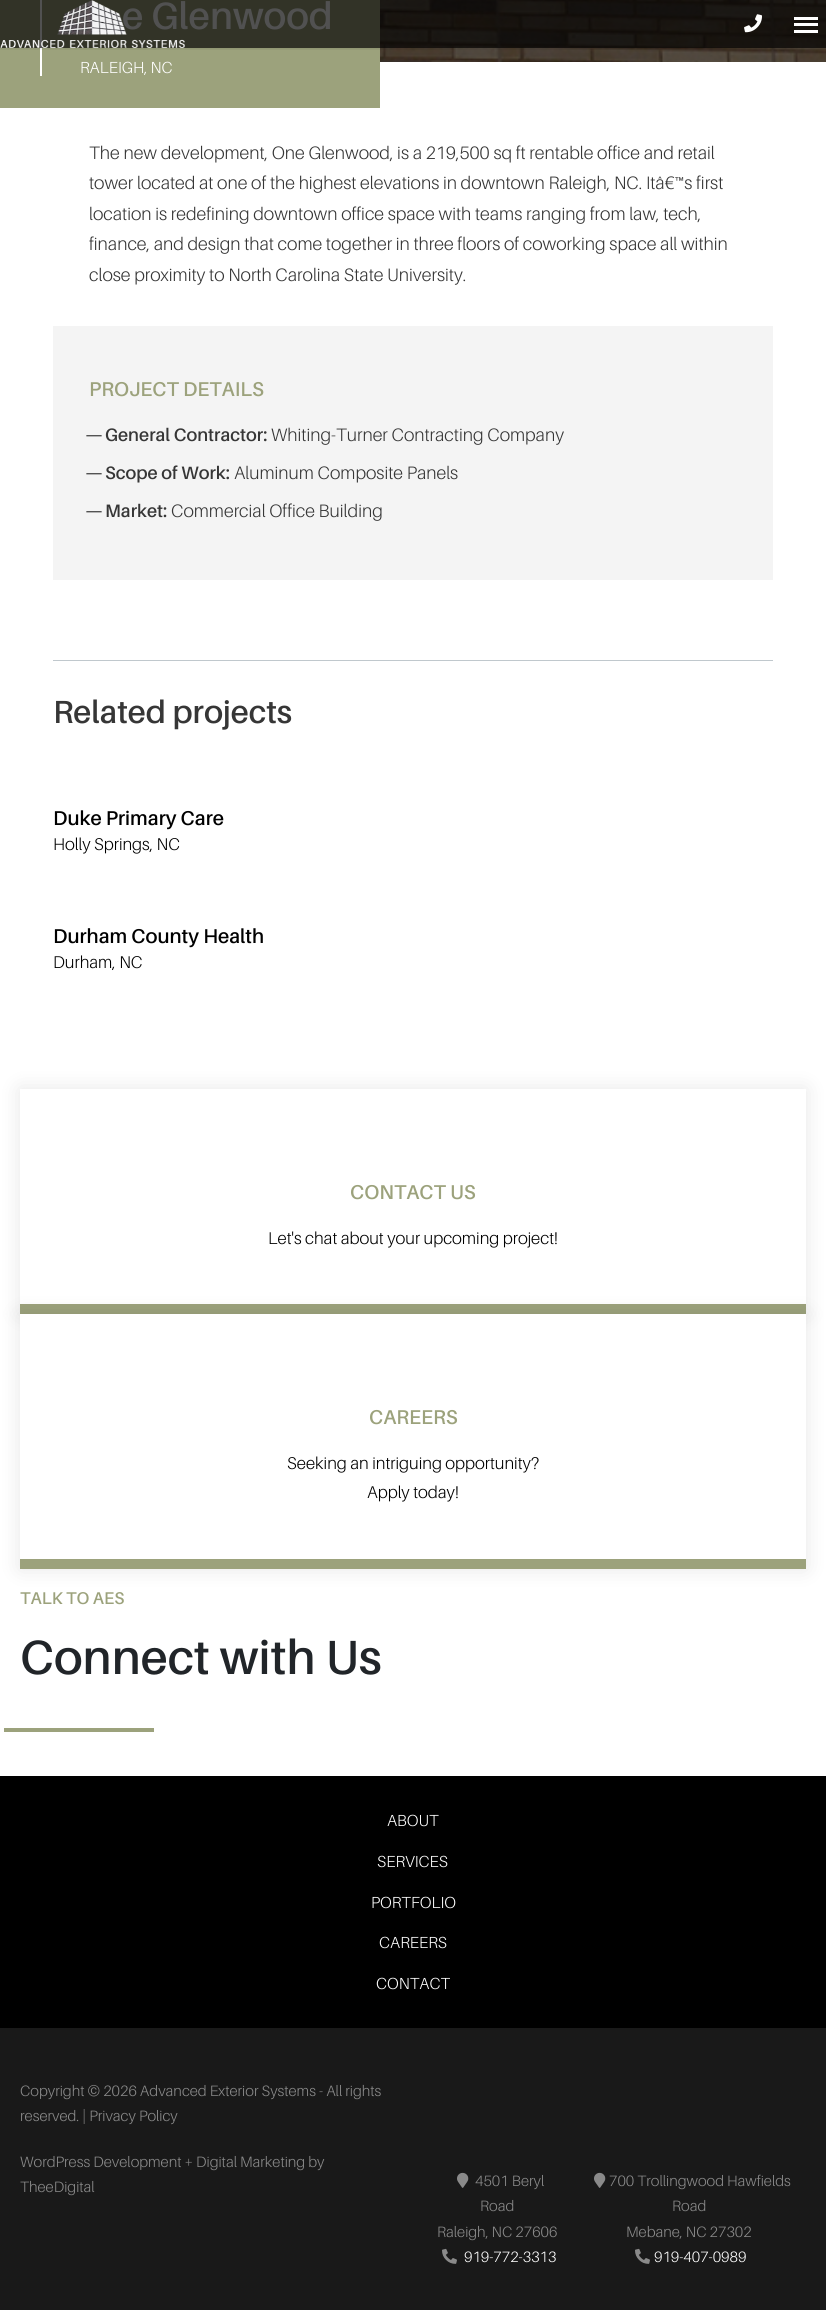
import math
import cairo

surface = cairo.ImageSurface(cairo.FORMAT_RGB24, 826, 2310)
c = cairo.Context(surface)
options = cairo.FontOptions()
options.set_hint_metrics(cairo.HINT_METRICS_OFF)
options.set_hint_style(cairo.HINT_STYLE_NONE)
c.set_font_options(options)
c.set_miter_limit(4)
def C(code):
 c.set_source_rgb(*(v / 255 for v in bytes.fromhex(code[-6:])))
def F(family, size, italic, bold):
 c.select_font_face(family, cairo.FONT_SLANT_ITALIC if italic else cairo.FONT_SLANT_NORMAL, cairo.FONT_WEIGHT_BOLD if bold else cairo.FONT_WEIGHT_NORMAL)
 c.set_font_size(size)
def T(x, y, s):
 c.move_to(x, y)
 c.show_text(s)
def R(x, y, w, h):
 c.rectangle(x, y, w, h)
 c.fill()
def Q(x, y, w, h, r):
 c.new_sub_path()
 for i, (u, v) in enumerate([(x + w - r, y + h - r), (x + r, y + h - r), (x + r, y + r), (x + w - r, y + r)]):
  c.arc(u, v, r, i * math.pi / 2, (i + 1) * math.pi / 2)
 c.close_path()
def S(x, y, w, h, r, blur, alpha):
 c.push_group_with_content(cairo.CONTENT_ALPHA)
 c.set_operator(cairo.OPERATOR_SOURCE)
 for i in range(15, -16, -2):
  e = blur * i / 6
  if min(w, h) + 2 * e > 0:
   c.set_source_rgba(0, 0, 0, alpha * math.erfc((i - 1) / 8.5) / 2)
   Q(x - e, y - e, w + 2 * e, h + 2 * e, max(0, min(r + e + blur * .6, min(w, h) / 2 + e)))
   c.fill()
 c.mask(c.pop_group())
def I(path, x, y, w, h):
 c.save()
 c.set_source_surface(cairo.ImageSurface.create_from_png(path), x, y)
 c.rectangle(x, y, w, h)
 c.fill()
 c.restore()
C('ffffff')
c.paint()
C('9ca27c')
R(0,0,380,108)
C('ffffff')
R(40,0,2,76)
I('3.png',380,0,446,62)
c.save()
c.rectangle(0,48,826,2)
c.clip()
C('000000')
S(0,1,826,48,0,1.5,.1)
c.restore()
F('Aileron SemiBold',38,0,0)
T(122,29,'e Glenwood')
c.set_source_rgba(0,0,0,0.68)
R(0,0,826,48)
I('1.png',0,0,185,48)
I('2.png',744,14,18,19)
C('ffffff')
R(794,17,24,3)
R(794,23,24,3)
R(794,30,24,3)
F('Aileron Light',16,0,0)
T(80,73,'RALEIGH, NC')
F('Aileron Light',18,0,0)
C('363636')
T(89,159,'The new development, One Glenwood, is a 219,500 sq ft rentable office and retail')
T(89,189,'tower located at one of the highest elevations in downtown Raleigh, NC. Itâ€™s first')
T(89,220,'location is redefining downtown office space with teams ranging from law, tech,')
T(89,250,'finance, and design that come together in three floors of coworking space all within')
T(89,281,'close proximity to North Carolina State University.')
C('f4f4f4')
R(53,326,720,254)
F('Aileron SemiBold',20,0,0)
C('9ca27c')
T(89,396,'PROJECT DETAILS')
F('Aileron SemiBold',18,0,0)
C('363636')
T(85,441,'—')
T(105,441,'General Contractor:')
F('Aileron Light',18,0,0)
T(271,441,'Whiting-Turner Contracting Company')
F('Aileron SemiBold',18,0,0)
T(85,479,'—')
T(105,479,'Scope of Work:')
F('Aileron Light',18,0,0)
T(234,479,'Aluminum Composite Panels')
F('Aileron SemiBold',18,0,0)
T(85,517,'—')
T(105,517,'Market:')
F('Aileron Light',18,0,0)
T(171,517,'Commercial Office Building')
C('c0c8cd')
R(53,660,720,1)
F('Aileron SemiBold',32,0,0)
C('363636')
T(53,723,'Related projects')
F('Aileron SemiBold',20,0,0)
C('000000')
T(53,825,'Duke Primary Care')
F('Aileron Light',17,0,0)
T(53,850,'Holly Springs, NC')
F('Aileron SemiBold',20,0,0)
T(53,943,'Durham County Health')
F('Aileron Light',17,0,0)
T(53,968,'Durham, NC')
c.save()
c.set_fill_rule(cairo.FILL_RULE_EVEN_ODD)
c.new_path()
c.move_to(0,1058)
c.line_to(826,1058)
c.line_to(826,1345)
c.line_to(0,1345)
c.close_path()
c.move_to(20,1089)
c.line_to(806,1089)
c.line_to(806,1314)
c.line_to(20,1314)
c.close_path()
c.clip()
C('000000')
S(20,1089,786,225,0,10,.1)
c.restore()
C('9ca27c')
R(20,1304,786,10)
F('Aileron SemiBold',20,0,0)
T(350,1199,'CONTACT US')
F('Aileron Light',17,0,0)
C('000000')
T(268,1244,'Let\'s chat about your upcoming project!')
C('000000')
S(20,1314,786,255,0,10,.1)
C('ffffff')
R(20,1314,786,245)
C('9ca27c')
R(20,1559,786,10)
F('Aileron SemiBold',20,0,0)
T(369,1424,'CAREERS')
F('Aileron Light',17,0,0)
C('000000')
T(287,1469,'Seeking an intriguing opportunity?')
T(367,1498,'Apply today!')
F('Aileron SemiBold',17,0,0)
C('9ca27c')
T(20,1604,'TALK TO AES')
F('Aileron SemiBold',48,0,0)
C('212529')
T(20,1674,'Connect with Us')
C('9ca27c')
R(4,1728,150,4)
C('191919')
R(0,2028,826,282)
C('000000')
R(0,1776,826,252)
F('Aileron Light',16,0,0)
C('ffffff')
T(387,1826,'ABOUT')
T(377,1867,'SERVICES')
T(371,1908,'PORTFOLIO')
T(379,1948,'CAREERS')
T(376,1989,'CONTACT')
F('Aileron Light',15,0,0)
C('8a8a8a')
T(20,2096,'Copyright © 2026 Advanced Exterior Systems - All rights')
T(20,2121,'reserved. | Privacy Policy')
T(20,2167,'WordPress Development + Digital Marketing by')
T(20,2192,'TheeDigital')
I('4.png',457,2172,12,16)
T(475,2186,'4501 Beryl')
T(480,2211,'Road')
T(437,2237,'Raleigh, NC 27606')
I('5.png',442,2248,15,16)
C('ffffff')
T(464,2262,'919-772-3313')
I('4.png',594,2172,12,16)
C('8a8a8a')
T(609,2186,'700 Trollingwood Hawfields')
T(672,2211,'Road')
T(626,2237,'Mebane, NC 27302')
I('5.png',635,2248,15,16)
C('ffffff')
T(654,2262,'919-407-0989')
surface.write_to_png('o.png')
